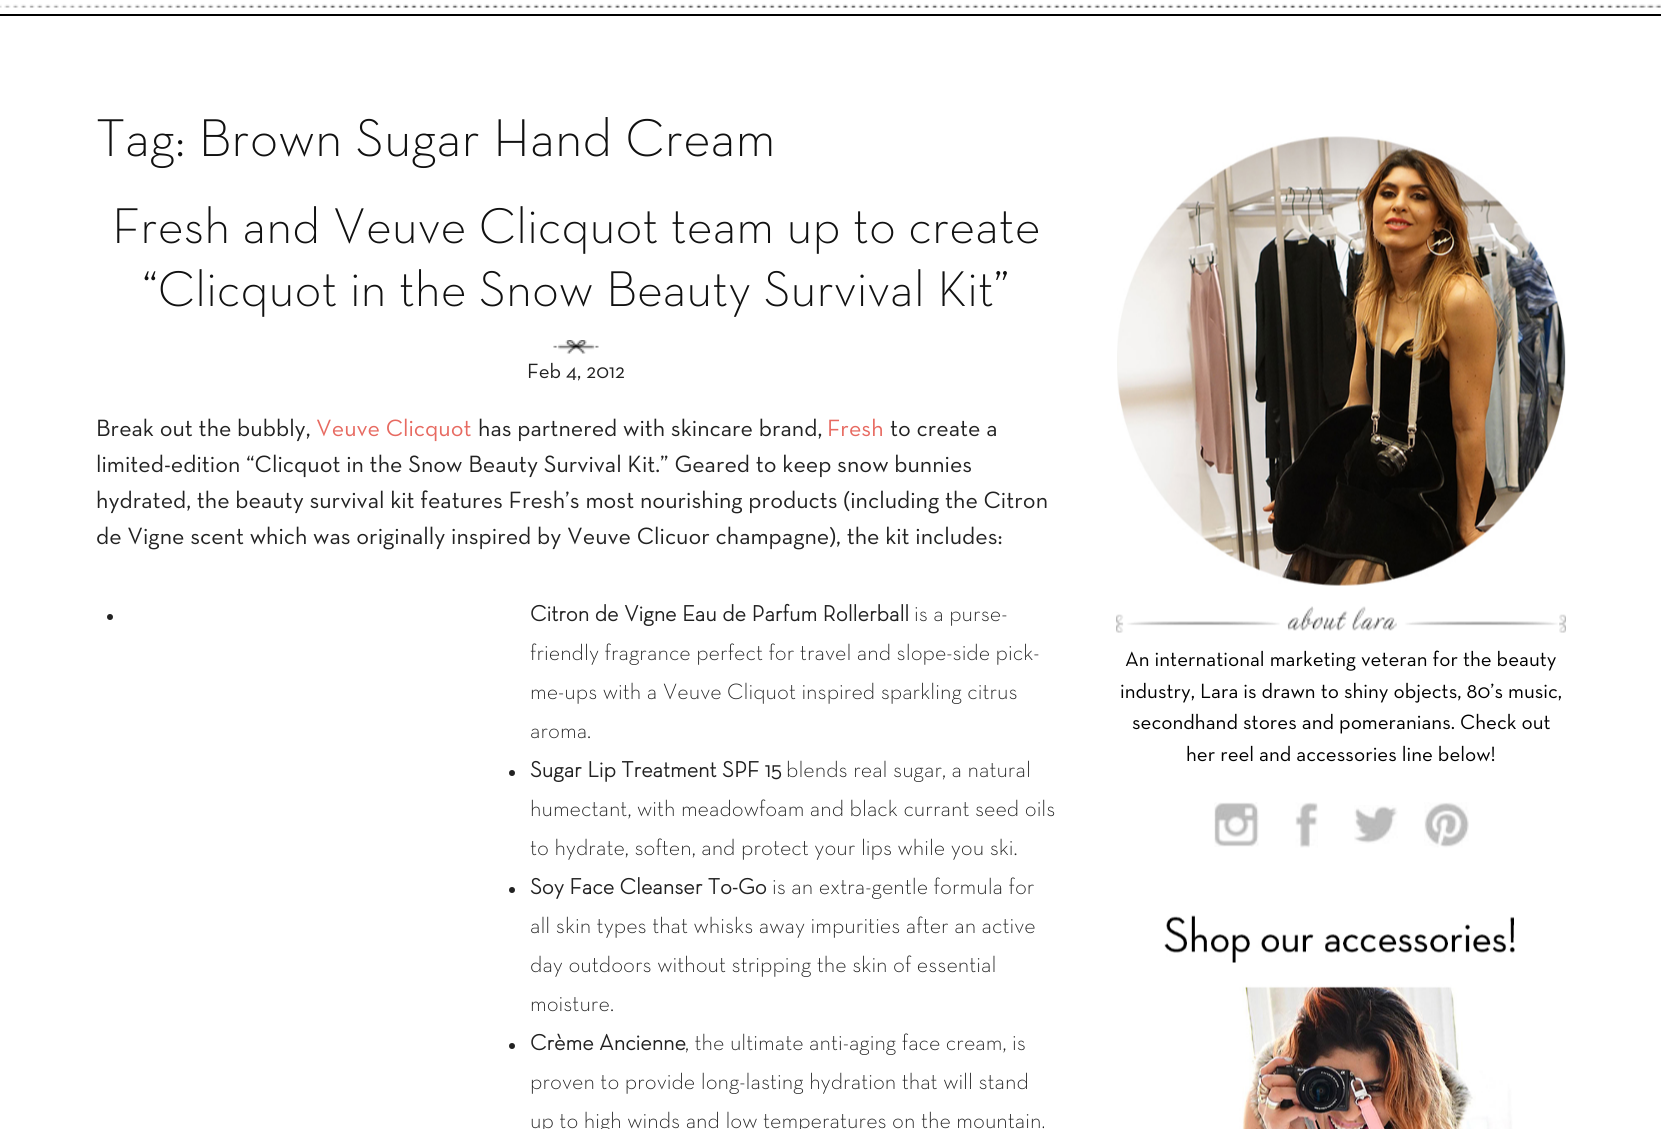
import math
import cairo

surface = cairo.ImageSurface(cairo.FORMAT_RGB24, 1661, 1129)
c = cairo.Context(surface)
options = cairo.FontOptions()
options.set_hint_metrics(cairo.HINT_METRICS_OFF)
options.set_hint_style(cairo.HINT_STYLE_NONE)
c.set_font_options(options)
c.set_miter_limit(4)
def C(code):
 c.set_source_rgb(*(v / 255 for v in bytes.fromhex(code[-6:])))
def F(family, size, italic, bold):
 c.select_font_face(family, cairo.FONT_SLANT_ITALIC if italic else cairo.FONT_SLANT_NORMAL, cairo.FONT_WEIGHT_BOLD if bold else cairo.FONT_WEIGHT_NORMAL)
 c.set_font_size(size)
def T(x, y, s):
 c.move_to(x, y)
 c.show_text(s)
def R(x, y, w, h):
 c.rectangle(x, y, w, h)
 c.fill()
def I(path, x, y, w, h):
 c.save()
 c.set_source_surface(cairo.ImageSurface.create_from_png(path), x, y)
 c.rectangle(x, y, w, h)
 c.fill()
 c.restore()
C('ffffff')
c.paint()
I('1.png',0,4,1661,4)
C('000000')
R(0,14,1661,2)
F('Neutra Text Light',54,0,0)
C('111111')
T(96,156,'Tag: Brown Sugar Hand Cream')
F('Neutra Text Light',51,0,0)
T(112,243,'Fresh and Veuve Clicquot team up to create')
T(142,306,'“Clicquot in the Snow Beauty Survival Kit”')
I('2.png',553,340,46,14)
F('Neutra Text',21,0,0)
C('222222')
T(527,378,'Feb 4, 2012')
F('Neutra Text',24,0,0)
T(96,436,'Break out the bubbly,')
C('e76a61')
T(316,436,'Veuve Clicquot')
C('222222')
T(478,436,'has partnered with skincare brand,')
C('e76a61')
T(827,436,'Fresh')
C('222222')
T(890,436,'to create a')
T(96,472,'limited-edition “Clicquot in the Snow Beauty Survival Kit.” Geared to keep snow bunnies')
T(96,508,'hydrated, the beauty survival kit features Fresh’s most nourishing products (including the Citron')
T(96,544,'de Vigne scent which was originally inspired by Veuve Clicuor champagne), the kit includes:')
c.new_path()
c.arc(110,617,3,0,2 * math.pi)
c.fill()
F('Neutra Text',22.5,0,1)
T(530,621,'Citron de Vigne Eau de Parfum Rollerball')
F('Neutra Text Light',22.5,0,0)
T(914,621,'is a purse-')
T(530,660,'friendly fragrance perfect for travel and slope-side pick-')
T(530,699,'me-ups with a Veuve Cliquot inspired sparkling citrus')
T(530,738,'aroma.')
c.new_path()
c.arc(512,773,3,0,2 * math.pi)
c.fill()
F('Neutra Text',22.5,0,1)
T(530,777,'Sugar Lip Treatment SPF 15')
F('Neutra Text Light',22.5,0,0)
T(786,777,'blends real sugar, a natural')
T(530,816,'humectant, with meadowfoam and black currant seed oils')
T(530,855,'to hydrate, soften, and protect your lips while you ski.')
c.new_path()
c.arc(512,890,3,0,2 * math.pi)
c.fill()
F('Neutra Text',22.5,0,1)
T(530,894,'Soy Face Cleanser To-Go')
F('Neutra Text Light',22.5,0,0)
T(772,894,'is an extra-gentle formula for')
T(530,933,'all skin types that whisks away impurities after an active')
T(530,972,'day outdoors without stripping the skin of essential')
T(530,1011,'moisture.')
c.new_path()
c.arc(512,1046,3,0,2 * math.pi)
c.fill()
F('Neutra Text',22.5,0,1)
T(530,1050,'Crème Ancienne')
F('Neutra Text Light',22.5,0,0)
T(685,1050,', the ultimate anti-aging face cream, is')
T(530,1089,'proven to provide long-lasting hydration that will stand')
T(530,1128,'up to high winds and low temperatures on the mountain.')
I('3.png',1117,136,449,450)
I('4.png',1116,606,450,27)
F('Neutra Text',21,0,0)
C('000000')
T(1125,666,'An international marketing veteran for the beauty')
T(1120,698,'industry, Lara is drawn to shiny objects, 80’s music,')
T(1132,729,'secondhand stores and pomeranians. Check out')
T(1186,761,'her reel and accessories line below!')
I('5.png',1214,802,45,45)
I('6.png',1295,802,23,46)
I('7.png',1354,805,44,39)
I('8.png',1424,802,45,46)
I('9.png',1164,915,351,214)
surface.write_to_png('o.png')
